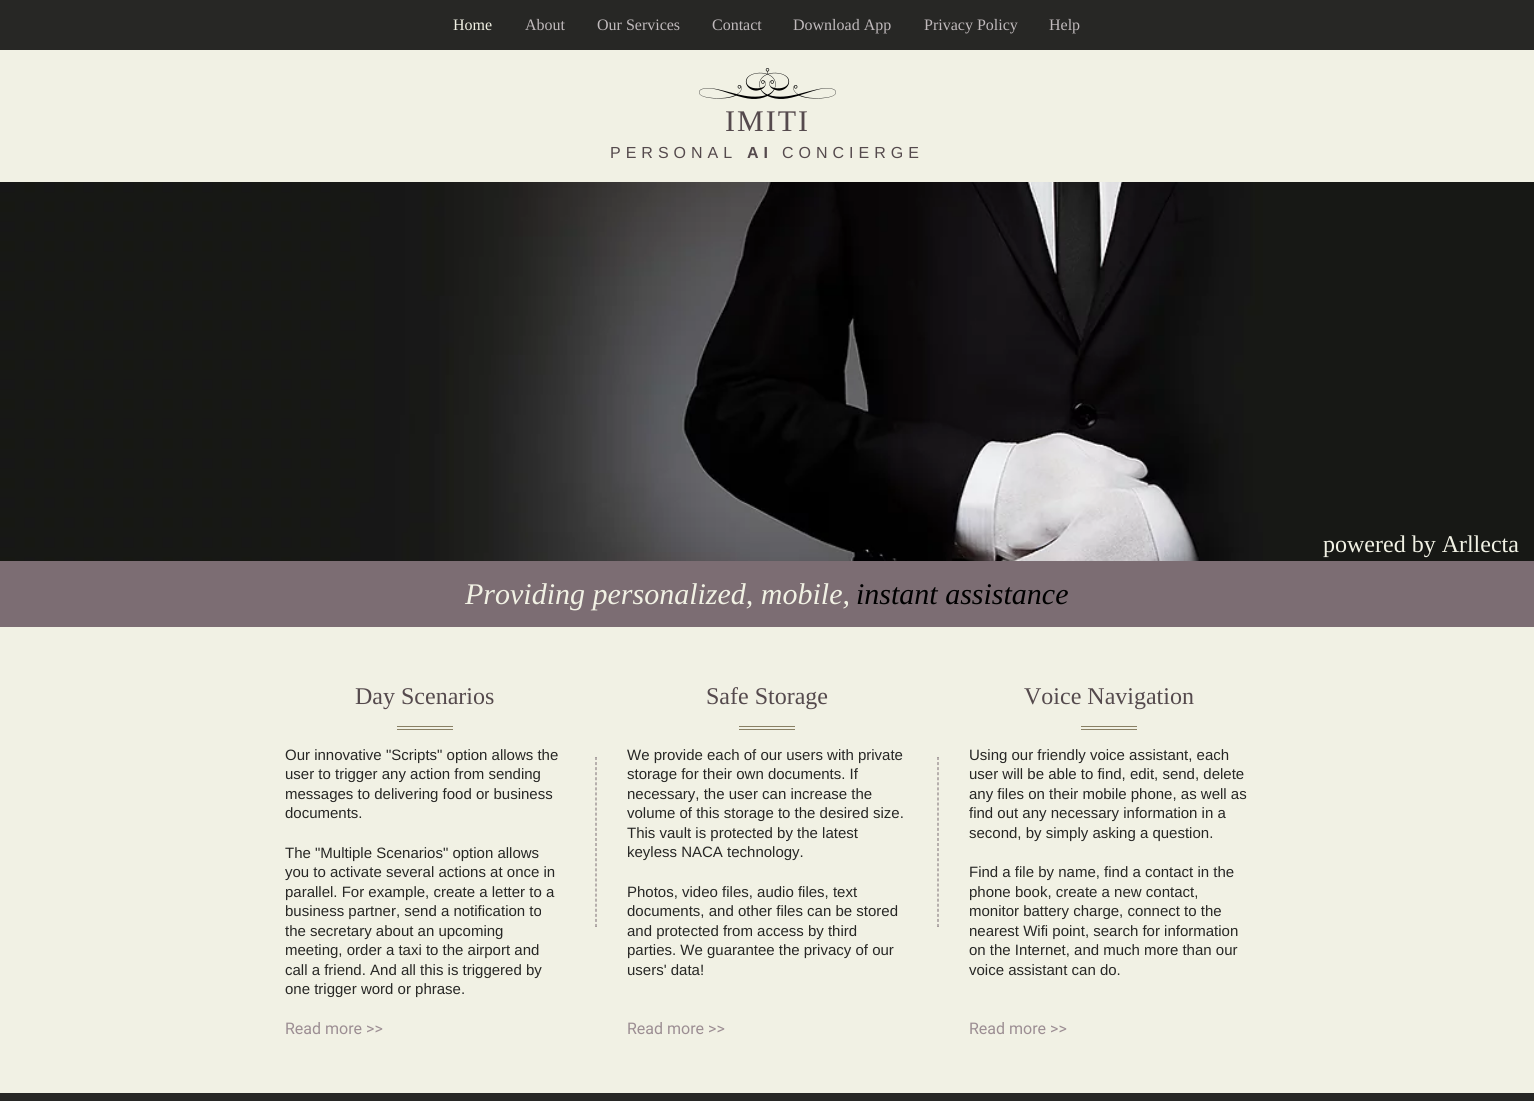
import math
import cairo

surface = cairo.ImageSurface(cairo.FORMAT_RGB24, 1534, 1101)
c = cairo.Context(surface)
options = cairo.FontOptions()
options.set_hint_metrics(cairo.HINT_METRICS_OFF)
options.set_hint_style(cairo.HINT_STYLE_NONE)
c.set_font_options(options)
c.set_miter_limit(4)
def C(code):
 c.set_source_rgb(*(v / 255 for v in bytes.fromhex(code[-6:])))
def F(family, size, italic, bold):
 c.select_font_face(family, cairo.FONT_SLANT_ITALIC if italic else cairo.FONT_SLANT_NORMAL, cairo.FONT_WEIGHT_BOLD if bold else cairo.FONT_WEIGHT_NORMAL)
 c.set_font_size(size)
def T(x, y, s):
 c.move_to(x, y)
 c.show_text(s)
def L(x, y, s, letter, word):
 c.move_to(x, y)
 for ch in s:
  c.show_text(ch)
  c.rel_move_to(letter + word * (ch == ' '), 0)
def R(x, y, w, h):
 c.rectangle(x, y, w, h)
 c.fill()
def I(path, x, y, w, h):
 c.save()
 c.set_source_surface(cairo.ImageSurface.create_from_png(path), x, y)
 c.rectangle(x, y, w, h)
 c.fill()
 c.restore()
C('272725')
c.paint()
F('Liberation Serif',16,0,0)
C('f1f1e4')
T(453,30,'Home')
C('c0babc')
T(525,30,'About')
T(597,30,'Our Services')
T(712,30,'Contact')
T(793,30,'Download App')
T(924,30,'Privacy Policy')
T(1049,30,'Help')
C('f1f1e4')
R(0,50,1534,132)
I('1.png',699,68,137,31)
F('Liberation Serif',30,0,0)
C('554a4d')
L(725,131,'IMITI',2,0)
F('Liberation Sans',16,0,0)
L(610,158,'PERSONAL',5,0)
F('Liberation Sans',16,0,1)
L(747,158,'AI',5,0)
F('Liberation Sans',16,0,0)
L(782,158,'CONCIERGE',5,0)
I('2.png',0,182,1534,379)
F('Liberation Serif',24,0,0)
C('f1f1e4')
T(1323,552,'powered by Arllecta')
C('7c6d73')
R(0,561,1534,66)
F('Liberation Serif',30,1,0)
C('f1f1e4')
T(465,604,'Providing personalized, mobile,')
C('000000')
T(856,604,'instant assistance')
C('f1f1e4')
R(0,627,1534,466)
F('Liberation Serif',24,0,0)
C('554a4d')
T(355,704,'Day Scenarios')
C('887f63')
R(397,726,56,1)
R(397,729,56,1)
F('Liberation Sans',15,0,0)
C('272725')
T(285,760,'Our innovative "Scripts" option allows the')
T(285,779,'user to trigger any action from sending')
T(285,799,'messages to delivering food or business')
T(285,818,'documents.')
T(285,858,'The "Multiple Scenarios" option allows')
T(285,877,'you to activate several actions at once in')
T(285,897,'parallel. For example, create a letter to a')
T(285,916,'business partner, send a notification to')
T(285,936,'the secretary about an upcoming')
T(285,955,'meeting, order a taxi to the airport and')
T(285,975,'call a friend. And all this is triggered by')
T(285,994,'one trigger word or phrase.')
F('Roboto',16,0,0)
C('9c8e93')
T(285,1034,'Read more >>')
C('b7b0ac')
c.new_path()
c.move_to(595,757)
c.line_to(597,757)
c.line_to(596,758)
c.close_path()
c.fill()
c.new_path()
c.move_to(596.5,757)
c.line_to(596.5,927)
c.set_source_rgba(0.486,0.431,0.455,0.5)
c.set_line_width(1)
c.set_dash([3,2.06])
c.stroke()
c.new_path()
c.move_to(597,927)
c.line_to(595,927)
c.line_to(596,926)
c.close_path()
c.fill()
c.new_path()
c.move_to(595.5,757)
c.line_to(595.5,927)
c.stroke()
F('Liberation Serif',24,0,0)
C('554a4d')
T(706,704,'Safe Storage')
C('887f63')
R(739,726,56,1)
R(739,729,56,1)
F('Liberation Sans',15,0,0)
C('272725')
T(627,760,'We provide each of our users with private')
T(627,779,'storage for their own documents. If')
T(627,799,'necessary, the user can increase the')
T(627,818,'volume of this storage to the desired size.')
T(627,838,'This vault is protected by the latest')
T(627,857,'keyless NACA technology.')
T(627,897,'Photos, video files, audio files, text')
T(627,916,'documents, and other files can be stored')
T(627,936,'and protected from access by third')
T(627,955,'parties. We guarantee the privacy of our')
T(627,975,'users\' data!')
F('Roboto',16,0,0)
C('9c8e93')
T(627,1034,'Read more >>')
C('b7b0ac')
c.new_path()
c.move_to(937,757)
c.line_to(939,757)
c.line_to(938,758)
c.close_path()
c.fill()
c.new_path()
c.move_to(938.5,757)
c.line_to(938.5,927)
c.set_source_rgba(0.486,0.431,0.455,0.5)
c.stroke()
c.new_path()
c.move_to(939,927)
c.line_to(937,927)
c.line_to(938,926)
c.close_path()
c.fill()
c.new_path()
c.move_to(937.5,757)
c.line_to(937.5,927)
c.stroke()
F('Liberation Serif',24,0,0)
C('554a4d')
T(1024,704,'Voice Navigation')
C('887f63')
R(1081,726,56,1)
R(1081,729,56,1)
F('Liberation Sans',15,0,0)
C('272725')
T(969,760,'Using our friendly voice assistant, each')
T(969,779,'user will be able to find, edit, send, delete')
T(969,799,'any files on their mobile phone, as well as')
T(969,818,'find out any necessary information in a')
T(969,838,'second, by simply asking a question.')
T(969,877,'Find a file by name, find a contact in the')
T(969,897,'phone book, create a new contact,')
T(969,916,'monitor battery charge, connect to the')
T(969,936,'nearest Wifi point, search for information')
T(969,955,'on the Internet, and much more than our')
T(969,975,'voice assistant can do.')
F('Roboto',16,0,0)
C('9c8e93')
T(969,1034,'Read more >>')
surface.write_to_png('o.png')
